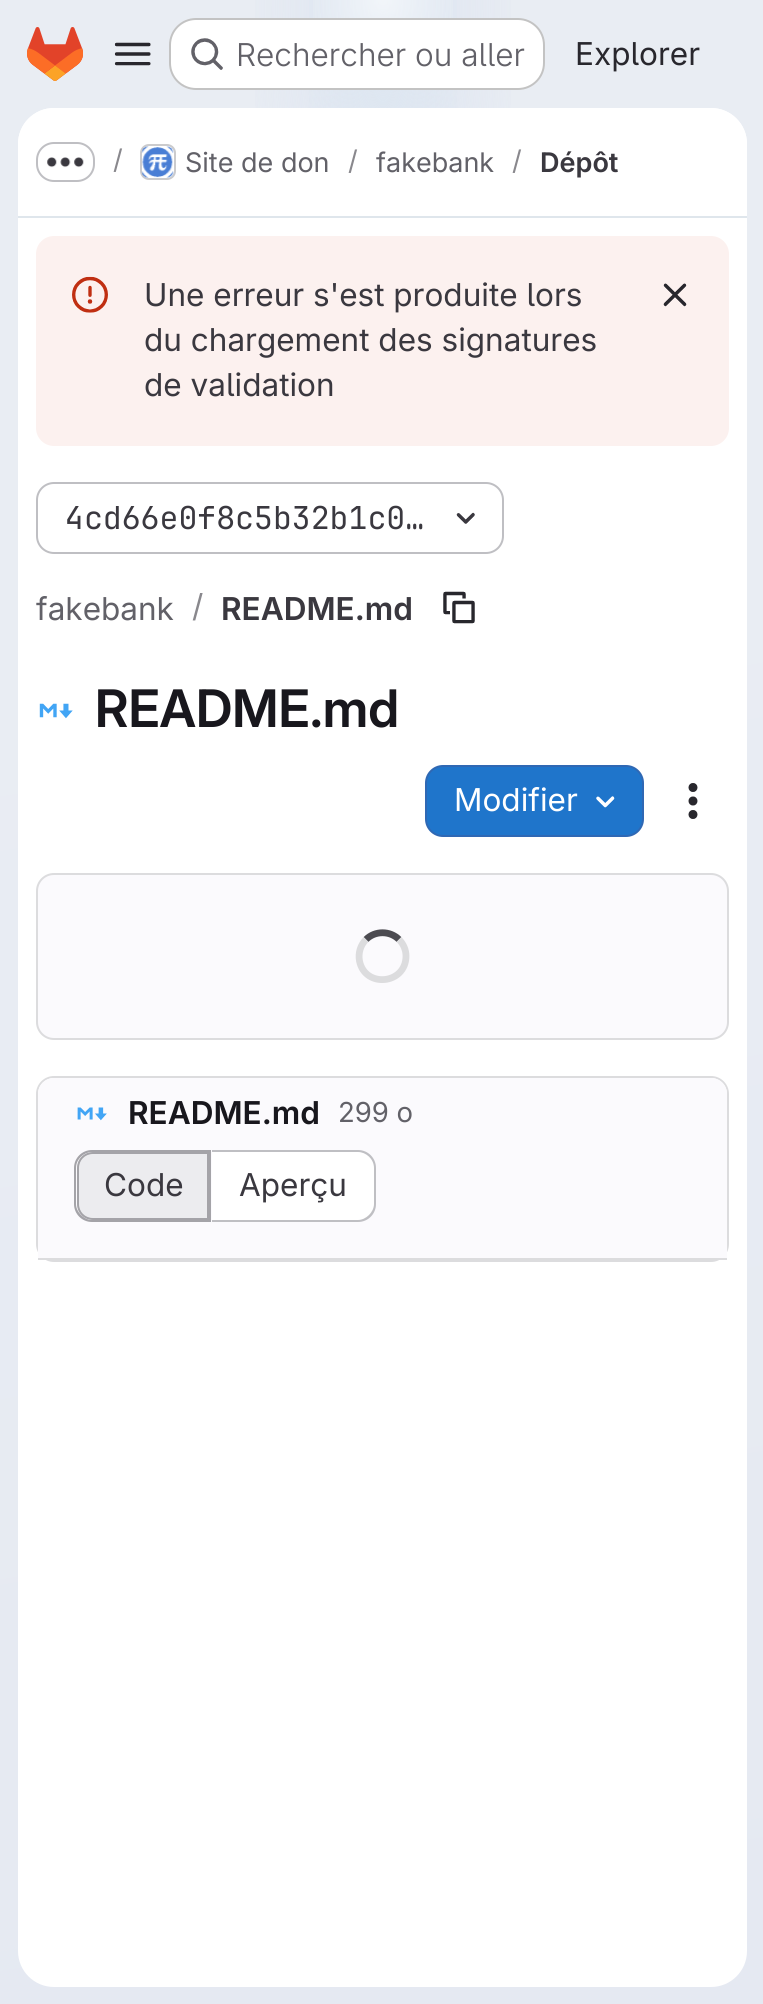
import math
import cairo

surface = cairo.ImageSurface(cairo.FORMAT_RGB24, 763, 2004)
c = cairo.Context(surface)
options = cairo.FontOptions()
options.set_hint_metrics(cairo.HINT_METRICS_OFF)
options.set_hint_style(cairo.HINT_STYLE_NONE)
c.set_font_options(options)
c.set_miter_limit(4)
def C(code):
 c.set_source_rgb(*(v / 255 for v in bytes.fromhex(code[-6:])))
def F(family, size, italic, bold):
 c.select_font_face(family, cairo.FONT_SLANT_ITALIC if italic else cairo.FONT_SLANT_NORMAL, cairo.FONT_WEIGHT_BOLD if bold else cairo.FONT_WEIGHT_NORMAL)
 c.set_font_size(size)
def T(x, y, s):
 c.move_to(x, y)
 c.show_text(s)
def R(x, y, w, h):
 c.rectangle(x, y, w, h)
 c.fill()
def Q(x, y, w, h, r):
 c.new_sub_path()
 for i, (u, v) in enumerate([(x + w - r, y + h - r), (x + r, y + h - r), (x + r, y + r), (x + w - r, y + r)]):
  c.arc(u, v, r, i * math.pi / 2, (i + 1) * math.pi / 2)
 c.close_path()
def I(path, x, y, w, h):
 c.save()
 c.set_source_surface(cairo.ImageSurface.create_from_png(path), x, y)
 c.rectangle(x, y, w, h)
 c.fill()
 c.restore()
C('ffffff')
c.paint()
gradient = cairo.LinearGradient(565,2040,200,-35)
gradient.add_color_stop_rgba(0,0.898,0.914,0.949,1)
gradient.add_color_stop_rgba(.7,0.914,0.929,0.953,1)
c.set_source(gradient)
R(0,0,763,2004)
gradient = cairo.RadialGradient(0,0,0,0,0,1)
gradient.set_matrix(cairo.Matrix(1 / 383, 0, 0, 1 / 2005, -1 * 383 / 383, -1 * 0 / 2005))
gradient.add_color_stop_rgba(0,0.871,0.898,0.945,1)
gradient.add_color_stop_rgba(.41,0.871,0.898,0.945,0)
c.set_source(gradient)
R(255,0,256,108)
gradient = cairo.RadialGradient(0,0,0,0,0,1)
gradient.set_matrix(cairo.Matrix(1 / 383, 0, 0, 1 / 2005, -1 * 383 / 383, -1 * 0 / 2005))
gradient.add_color_stop_rgba(0,0.871,0.906,0.945,1)
gradient.add_color_stop_rgba(.29,0.871,0.906,0.945,0)
c.set_source(gradient)
R(309,0,148,108)
gradient = cairo.RadialGradient(383,0,0,383,0,2041)
gradient.add_color_stop_rgba(0,1,1,1,.6)
gradient.add_color_stop_rgba(.04,1,1,1,0)
c.set_source(gradient)
R(313,0,140,18)
I('1.png',27,27,56,54)
I('2.png',114,42,37,24)
C('ffffff')
Q(169,18,376,72,27)
c.fill()
Q(170,19,374,70,26)
c.set_source_rgba(0.02,0.02,0.024,0.24)
c.stroke()
I('3.png',191,38,32,32)
F('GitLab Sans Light',31.5,0,0)
C('626168')
T(236,66,'Rechercher ou aller')
F('GitLab Sans',31.5,0,0)
C('28272d')
T(575,65,'Explorer')
C('ffffff')
Q(18,108,729,1879,36)
c.fill()
c.new_path()
c.move_to(54,108)
c.line_to(711,108)
c.curve_to(731,108,747,124,747,144)
c.line_to(747,218)
c.line_to(18,218)
c.line_to(18,144)
c.curve_to(18,124,34,108,54,108)
c.close_path()
c.fill()
C('dfe6ec')
R(18,216,729,2)
Q(37,143,57,38,17)
C('bfbfc3')
c.stroke()
I('4.png',47,157,37,11)
F('GitLab Sans',27,0,0)
C('89888d')
T(113,169,'/')
Q(141,145,34,34,8)
C('dcdcde')
c.stroke()
I('5.png',141,146,33,32)
Q(141,145,34,34,8)
c.set_source_rgba(0.02,0.02,0.024,0.08)
c.stroke()
C('626168')
T(185,172,'Site de don')
C('89888d')
T(348,170,'/')
C('626168')
T(376,172,'fakebank')
C('89888d')
T(512,170,'/')
F('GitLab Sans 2 SemiBold',27,0,0)
C('3a383f')
T(540,172,'Dépôt')
C('fcf1ef')
Q(36,236,693,210,18)
c.fill()
I('6.png',72,276,36,37)
F('GitLab Sans',31.5,0,0)
C('3a383f')
T(144,306,'Une erreur s\'est produite lors')
T(144,351,'du chargement des signatures')
T(144,396,'de validation')
I('7.png',663,283,24,24)
Q(37,483,466,70,17)
C('bfbfc3')
c.stroke()
F('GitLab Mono',31.5,0,0)
C('3a383f')
T(65,529,'4cd66e0f8c5b32b1c0…')
I('8.png',456,512,19,12)
F('GitLab Sans',31.5,0,0)
C('626168')
T(36,620,'fakebank')
C('89888d')
T(192,617,'/')
F('GitLab Sans 2 SemiBold',31.5,0,0)
C('3a383f')
T(221,620,'README.md')
I('9.png',443,591,32,33)
I('10.png',39,703,34,16)
F('GitLab Sans SemiBold',51.75,0,0)
C('18171d')
T(95,727,'README.md')
C('1f75cb')
Q(426,766,217,70,17)
c.fill_preserve()
C('2f68b4')
c.stroke()
F('GitLab Sans',31.5,0,0)
C('ffffff')
T(454,811,'Modifier')
I('11.png',596,796,19,12)
I('12.png',688,783,10,36)
C('fbfafd')
Q(37,874,691,165,17)
c.fill_preserve()
C('dcdcde')
c.stroke()
c.new_path()
c.move_to(366,939.5)
c.curve_to(375,930.5,390,930.5,399,939.5)
C('4c4b51')
c.set_line_width(6.8)
c.stroke()
c.new_path()
c.move_to(399,939.5)
c.curve_to(403.5,944,406,950,406,956)
c.curve_to(406,984.5,365,988.5,359.5,961)
c.curve_to(358,953,360.5,945,366,939.5)
C('dcdcde')
c.stroke()
Q(37,1077,691,184,17)
c.set_line_width(2)
c.stroke()
C('fbfafd')
c.new_path()
c.move_to(54,1078)
c.line_to(711,1078)
c.curve_to(720,1078,727,1085,727,1094)
c.line_to(727,1260)
c.line_to(38,1260)
c.line_to(38,1094)
c.curve_to(38,1085,45,1078,54,1078)
c.close_path()
c.fill()
C('dcdcde')
R(38,1258,689,2)
I('13.png',77,1107,30,14)
F('GitLab Sans 2 SemiBold',31.5,0,0)
C('18171d')
T(128,1124,'README.md')
F('GitLab Sans',27.5,0,0)
C('626168')
T(338,1122,'299 o')
C('ececef')
c.new_path()
c.move_to(93,1153)
c.line_to(208,1153)
c.line_to(208,1219)
c.line_to(93,1219)
c.curve_to(84.5,1219,78,1212.5,78,1204)
c.line_to(78,1168)
c.curve_to(78,1159.5,84.5,1153,93,1153)
c.close_path()
c.fill_preserve()
C('a4a3a8')
c.stroke()
c.set_fill_rule(cairo.FILL_RULE_EVEN_ODD)
c.new_path()
c.move_to(92,1150)
c.line_to(209,1150)
c.line_to(209,1222)
c.line_to(92,1222)
c.curve_to(82,1222,74,1214,74,1204)
c.line_to(74,1168)
c.curve_to(74,1158,82,1150,92,1150)
c.close_path()
c.move_to(92,1152)
c.line_to(209,1152)
c.line_to(209,1220)
c.line_to(92,1220)
c.curve_to(84,1220,76,1212,76,1204)
c.line_to(76,1168)
c.curve_to(76,1159,84,1152,92,1152)
c.close_path()
c.fill()
F('GitLab Sans',31.5,0,0)
C('3a383f')
T(104,1196,'Code')
C('ffffff')
c.new_path()
c.move_to(212,1152)
c.line_to(358,1152)
c.curve_to(367,1152,374,1159,374,1168)
c.line_to(374,1204)
c.curve_to(374,1213,367,1220,358,1220)
c.line_to(212,1220)
c.close_path()
c.fill()
C('bfbfc3')
c.new_path()
c.move_to(212,1150)
c.line_to(358,1150)
c.curve_to(368,1150,376,1158,376,1168)
c.line_to(376,1204)
c.curve_to(376,1214,368,1222,358,1222)
c.line_to(212,1222)
c.close_path()
c.move_to(212,1152)
c.line_to(358,1152)
c.curve_to(366,1152,374,1159,374,1168)
c.line_to(374,1204)
c.curve_to(374,1212,366,1220,358,1220)
c.line_to(212,1220)
c.close_path()
c.fill()
C('a4a3a8')
R(209,1150,2,72)
C('3a383f')
T(239,1196,'Aperçu')
surface.write_to_png('o.png')
